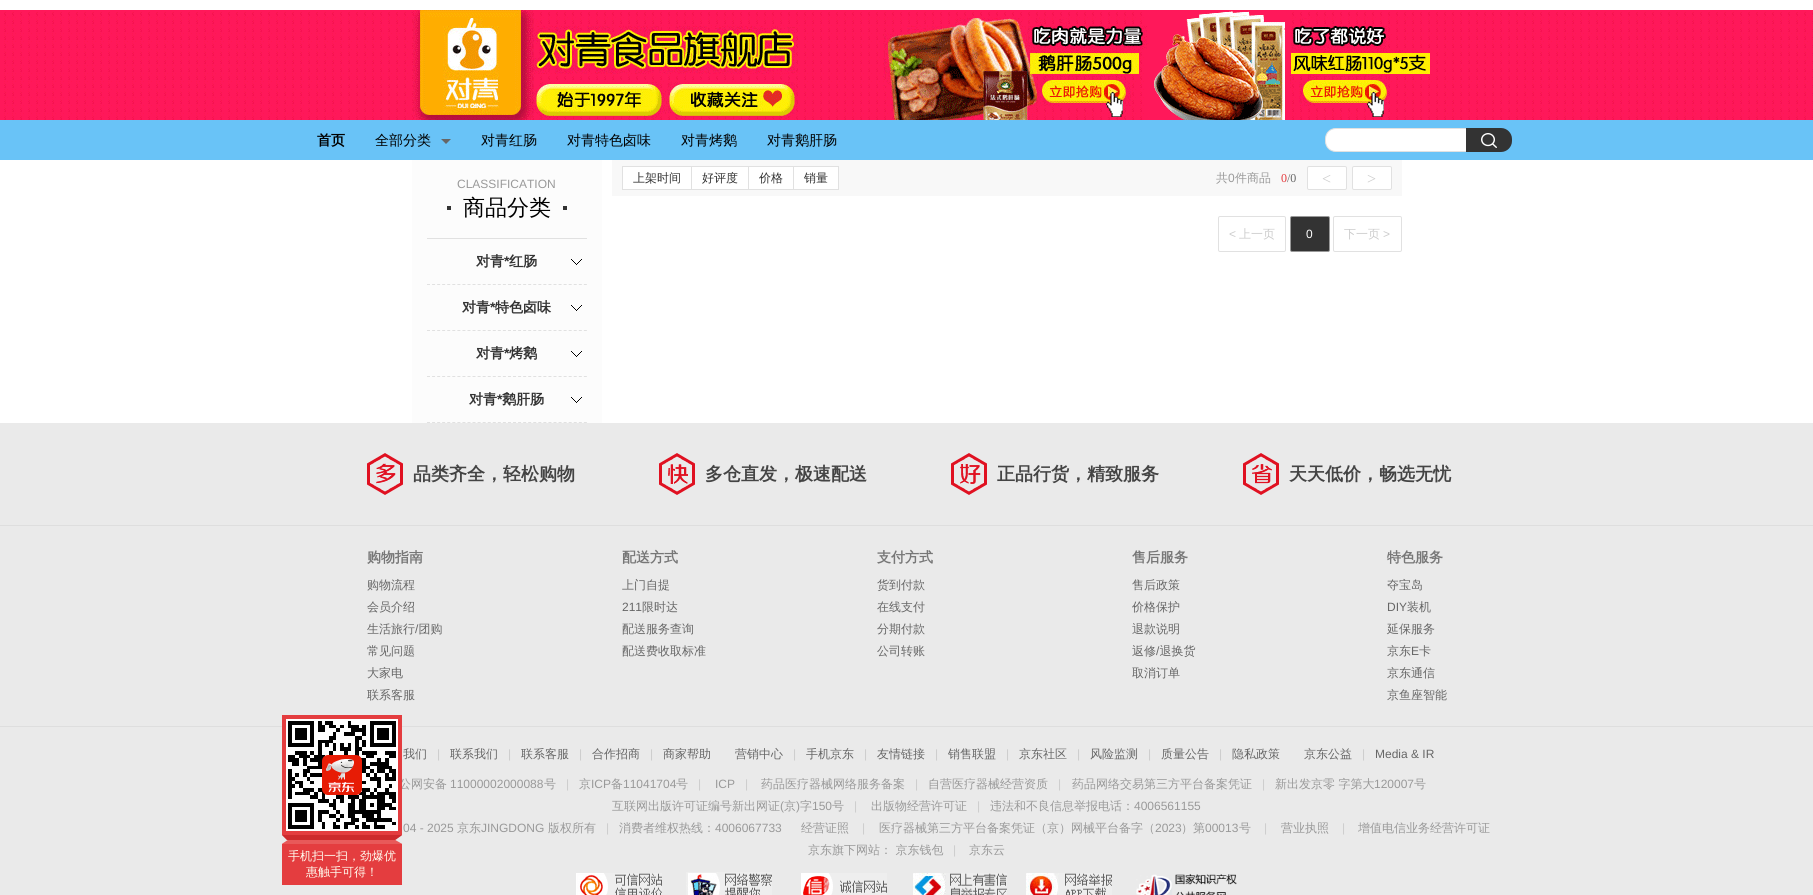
import math
import cairo

surface = cairo.ImageSurface(cairo.FORMAT_RGB24, 1813, 895)
c = cairo.Context(surface)
options = cairo.FontOptions()
options.set_hint_metrics(cairo.HINT_METRICS_OFF)
options.set_hint_style(cairo.HINT_STYLE_NONE)
c.set_font_options(options)
c.set_miter_limit(4)
def C(code):
 c.set_source_rgb(*(v / 255 for v in bytes.fromhex(code[-6:])))
def F(family, size, italic, bold):
 c.select_font_face(family, cairo.FONT_SLANT_ITALIC if italic else cairo.FONT_SLANT_NORMAL, cairo.FONT_WEIGHT_BOLD if bold else cairo.FONT_WEIGHT_NORMAL)
 c.set_font_size(size)
def T(x, y, s):
 c.move_to(x, y)
 c.show_text(s)
def R(x, y, w, h):
 c.rectangle(x, y, w, h)
 c.fill()
def Q(x, y, w, h, r):
 c.new_sub_path()
 for i, (u, v) in enumerate([(x + w - r, y + h - r), (x + r, y + h - r), (x + r, y + r), (x + w - r, y + r)]):
  c.arc(u, v, r, i * math.pi / 2, (i + 1) * math.pi / 2)
 c.close_path()
def I(path, x, y, w, h):
 c.save()
 c.set_source_surface(cairo.ImageSurface.create_from_png(path), x, y)
 c.rectangle(x, y, w, h)
 c.fill()
 c.restore()
C('ffffff')
c.paint()
I('1.png',0,10,1813,110)
C('69c3f7')
R(0,120,1813,40)
F('WenQuanYi Zen Hei',14,0,1)
C('000000')
T(317,145,'首页')
F('WenQuanYi Zen Hei Medium',14,0,0)
T(375,145,'全部分类')
C('666666')
c.new_path()
c.move_to(441,139)
c.line_to(451,139)
c.line_to(446,144)
c.close_path()
c.fill()
C('000000')
T(481,145,'对青红肠')
T(567,145,'对青特色卤味')
T(681,145,'对青烤鹅')
T(767,145,'对青鹅肝肠')
C('ffffff')
c.new_path()
c.move_to(1336,128.5)
c.line_to(1466.5,128.5)
c.line_to(1466.5,151.5)
c.line_to(1336,151.5)
c.curve_to(1330,151.5,1325.5,147,1325.5,141)
c.line_to(1325.5,139)
c.curve_to(1325.5,133,1330,128.5,1336,128.5)
c.close_path()
c.fill_preserve()
C('e1e1e1')
c.set_line_width(1)
c.stroke()
C('333333')
c.new_path()
c.move_to(1466,128)
c.line_to(1501,128)
c.curve_to(1507,128,1512,133,1512,139)
c.line_to(1512,141)
c.curve_to(1512,147,1507,152,1501,152)
c.line_to(1466,152)
c.close_path()
c.fill()
I('2.png',1481,133,16,15)
C('fcfcfc')
R(412,160,190,263)
F('Liberation Sans',12,0,0)
C('999999')
T(457,188,'CLASSIFICATION')
C('e1e1e1')
R(427,238,160,1)
C('333333')
R(447,206,4,4)
F('WenQuanYi Zen Hei Medium',22,0,0)
C('000000')
T(463,215,'商品分类')
C('333333')
R(563,206,4,4)
c.new_path()
c.move_to(427,284.5)
c.line_to(587,284.5)
C('e1e1e1')
c.set_dash([3,2.06])
c.stroke()
F('WenQuanYi Zen Hei',14,0,1)
C('333333')
T(476,266,'对青')
F('Liberation Sans',14,0,1)
T(504,266,'*')
F('WenQuanYi Zen Hei',14,0,1)
T(509,266,'红肠')
I('3.png',571,259,11,6)
c.new_path()
c.move_to(427,330.5)
c.line_to(587,330.5)
C('e1e1e1')
c.stroke()
C('333333')
T(462,312,'对青')
F('Liberation Sans',14,0,1)
T(490,312,'*')
F('WenQuanYi Zen Hei',14,0,1)
T(495,312,'特色卤味')
I('3.png',571,305,11,6)
c.new_path()
c.move_to(427,376.5)
c.line_to(587,376.5)
C('e1e1e1')
c.stroke()
C('333333')
T(476,358,'对青')
F('Liberation Sans',14,0,1)
T(504,358,'*')
F('WenQuanYi Zen Hei',14,0,1)
T(509,358,'烤鹅')
I('3.png',571,351,11,6)
c.new_path()
c.move_to(427,422.5)
c.line_to(587,422.5)
C('e1e1e1')
c.stroke()
C('333333')
T(469,404,'对青')
F('Liberation Sans',14,0,1)
T(497,404,'*')
F('WenQuanYi Zen Hei',14,0,1)
T(502,404,'鹅肝肠')
I('3.png',571,397,11,6)
C('f8f8f8')
R(612,160,790,36)
C('ffffff')
c.rectangle(622.5,166.5,69,23)
c.fill_preserve()
C('e1e1e1')
c.set_dash([])
c.stroke()
F('WenQuanYi Zen Hei Medium',12,0,0)
C('333333')
T(633,182,'上架时间')
C('ffffff')
c.rectangle(691.5,166.5,57,23)
c.fill_preserve()
C('e1e1e1')
c.stroke()
C('333333')
T(702,182,'好评度')
C('ffffff')
c.rectangle(748.5,166.5,45,23)
c.fill_preserve()
C('e1e1e1')
c.stroke()
C('333333')
T(759,182,'价格')
C('ffffff')
c.rectangle(793.5,166.5,45,23)
c.fill_preserve()
C('e1e1e1')
c.stroke()
C('333333')
T(804,182,'销量')
C('999999')
T(1216,182,'共')
F('Liberation Sans',12,0,0)
T(1228,182,'0')
F('WenQuanYi Zen Hei Medium',12,0,0)
T(1235,182,'件商品')
F('Liberation Serif',12,0,0)
C('e4393c')
T(1281,182,'0')
C('666666')
T(1287,182,'/0')
C('ffffff')
Q(1307.5,166.5,39,23,1.5)
c.fill_preserve()
C('e1e1e1')
c.stroke()
F('Liberation Serif',16,0,0)
C('cccccc')
T(1322,184,'<')
C('ffffff')
Q(1352.5,166.5,39,23,1.5)
c.fill_preserve()
C('e1e1e1')
c.stroke()
C('cccccc')
T(1367,184,'>')
Q(1218.5,216.5,67,35,1.5)
C('e1e1e1')
c.stroke()
F('Liberation Sans',12,0,0)
C('cccccc')
T(1229,238,'<')
F('WenQuanYi Zen Hei Medium',12,0,0)
T(1239,238,'上一页')
C('333333')
Q(1290.5,216.5,39,35,1.5)
c.fill_preserve()
C('999999')
c.stroke()
F('Liberation Sans',12,0,0)
C('ffffff')
T(1306,238,'0')
Q(1333.5,216.5,68,35,1.5)
C('e1e1e1')
c.stroke()
F('WenQuanYi Zen Hei Medium',12,0,0)
C('cccccc')
T(1344,238,'下一页')
F('Liberation Sans',12,0,0)
T(1383,238,'>')
C('eaeaea')
R(0,423,1813,472)
I('4.png',367,453,36,42)
F('WenQuanYi Zen Hei',18,0,1)
C('444444')
T(413,480,'品类齐全，轻松购物')
I('5.png',659,453,36,42)
T(705,480,'多仓直发，极速配送')
I('6.png',951,453,36,42)
T(997,480,'正品行货，精致服务')
I('7.png',1243,453,36,42)
T(1289,480,'天天低价，畅选无忧')
C('dedede')
R(0,525,1813,1)
R(0,726,1813,1)
F('WenQuanYi Zen Hei',14,0,1)
C('777777')
T(367,562,'购物指南')
F('WenQuanYi Zen Hei Medium',12,0,0)
C('666666')
T(367,589,'购物流程')
T(367,611,'会员介绍')
T(367,633,'生活旅行 团购')
F('Liberation Sans',12,0,0)
T(415,633,'/')
F('WenQuanYi Zen Hei Medium',12,0,0)
T(367,655,'常见问题')
T(367,677,'大家电')
c.save()
c.rectangle(367,684,255,22)
c.clip()
T(367,699,'联系客服')
c.restore()
F('WenQuanYi Zen Hei',14,0,1)
C('777777')
T(622,562,'配送方式')
F('WenQuanYi Zen Hei Medium',12,0,0)
C('666666')
T(622,589,'上门自提')
F('Liberation Sans',12,0,0)
T(622,611,'211')
F('WenQuanYi Zen Hei Medium',12,0,0)
T(642,611,'限时达')
T(622,633,'配送服务查询')
T(622,655,'配送费收取标准')
F('WenQuanYi Zen Hei',14,0,1)
C('777777')
T(877,562,'支付方式')
F('WenQuanYi Zen Hei Medium',12,0,0)
C('666666')
T(877,589,'货到付款')
T(877,611,'在线支付')
T(877,633,'分期付款')
T(877,655,'公司转账')
F('WenQuanYi Zen Hei',14,0,1)
C('777777')
T(1132,562,'售后服务')
F('WenQuanYi Zen Hei Medium',12,0,0)
C('666666')
T(1132,589,'售后政策')
T(1132,611,'价格保护')
T(1132,633,'退款说明')
T(1132,655,'返修 退换货')
F('Liberation Sans',12,0,0)
T(1156,655,'/')
F('WenQuanYi Zen Hei Medium',12,0,0)
T(1132,677,'取消订单')
F('WenQuanYi Zen Hei',14,0,1)
C('777777')
T(1387,562,'特色服务')
F('WenQuanYi Zen Hei Medium',12,0,0)
C('666666')
T(1387,589,'夺宝岛')
F('Liberation Sans',12,0,0)
T(1387,611,'DIY')
F('WenQuanYi Zen Hei Medium',12,0,0)
T(1407,611,'装机')
T(1387,633,'延保服务')
T(1387,655,'京东')
F('Liberation Sans',12,0,0)
T(1411,655,'E')
F('WenQuanYi Zen Hei Medium',12,0,0)
T(1419,655,'卡')
T(1387,677,'京东通信')
T(1387,699,'京鱼座智能')
T(403,758,'我们')
F('Liberation Sans',12,0,0)
C('cccccc')
T(437,758,'|')
F('WenQuanYi Zen Hei Medium',12,0,0)
C('666666')
T(450,758,'联系我们')
F('Liberation Sans',12,0,0)
C('cccccc')
T(508,758,'|')
F('WenQuanYi Zen Hei Medium',12,0,0)
C('666666')
T(521,758,'联系客服')
F('Liberation Sans',12,0,0)
C('cccccc')
T(579,758,'|')
F('WenQuanYi Zen Hei Medium',12,0,0)
C('666666')
T(592,758,'合作招商')
F('Liberation Sans',12,0,0)
C('cccccc')
T(650,758,'|')
F('WenQuanYi Zen Hei Medium',12,0,0)
C('666666')
T(663,758,'商家帮助')
T(735,758,'营销中心')
F('Liberation Sans',12,0,0)
C('cccccc')
T(793,758,'|')
F('WenQuanYi Zen Hei Medium',12,0,0)
C('666666')
T(806,758,'手机京东')
F('Liberation Sans',12,0,0)
C('cccccc')
T(864,758,'|')
F('WenQuanYi Zen Hei Medium',12,0,0)
C('666666')
T(877,758,'友情链接')
F('Liberation Sans',12,0,0)
C('cccccc')
T(935,758,'|')
F('WenQuanYi Zen Hei Medium',12,0,0)
C('666666')
T(948,758,'销售联盟')
F('Liberation Sans',12,0,0)
C('cccccc')
T(1006,758,'|')
F('WenQuanYi Zen Hei Medium',12,0,0)
C('666666')
T(1019,758,'京东社区')
F('Liberation Sans',12,0,0)
C('cccccc')
T(1077,758,'|')
F('WenQuanYi Zen Hei Medium',12,0,0)
C('666666')
T(1090,758,'风险监测')
F('Liberation Sans',12,0,0)
C('cccccc')
T(1148,758,'|')
F('WenQuanYi Zen Hei Medium',12,0,0)
C('666666')
T(1161,758,'质量公告')
F('Liberation Sans',12,0,0)
C('cccccc')
T(1219,758,'|')
F('WenQuanYi Zen Hei Medium',12,0,0)
C('666666')
T(1232,758,'隐私政策')
T(1304,758,'京东公益')
F('Liberation Sans',12,0,0)
C('cccccc')
T(1362,758,'|')
C('666666')
T(1375,758,'Media & IR')
F('WenQuanYi Zen Hei Medium',12,0,0)
C('999999')
T(399,788,'公网安备')
F('Liberation Sans',12,0,0)
T(450,788,'11000002000088')
F('WenQuanYi Zen Hei Medium',12,0,0)
T(544,788,'号')
F('Liberation Sans',12,0,0)
C('cccccc')
T(566,788,'|')
F('WenQuanYi Zen Hei Medium',12,0,0)
C('999999')
T(579,788,'京')
F('Liberation Sans',12,0,0)
T(591,788,'ICP')
F('WenQuanYi Zen Hei Medium',12,0,0)
T(611,788,'备')
F('Liberation Sans',12,0,0)
T(623,788,'11041704')
F('WenQuanYi Zen Hei Medium',12,0,0)
T(676,788,'号')
F('Liberation Sans',12,0,0)
C('cccccc')
T(698,788,'|')
C('999999')
T(715,788,'ICP')
C('cccccc')
T(745,788,'|')
F('WenQuanYi Zen Hei Medium',12,0,0)
C('999999')
T(761,788,'药品医疗器械网络服务备案')
F('Liberation Sans',12,0,0)
C('cccccc')
T(915,788,'|')
F('WenQuanYi Zen Hei Medium',12,0,0)
C('999999')
T(928,788,'自营医疗器械经营资质')
F('Liberation Sans',12,0,0)
C('cccccc')
T(1058,788,'|')
F('WenQuanYi Zen Hei Medium',12,0,0)
C('999999')
T(1072,788,'药品网络交易第三方平台备案凭证')
F('Liberation Sans',12,0,0)
C('cccccc')
T(1262,788,'|')
F('WenQuanYi Zen Hei Medium',12,0,0)
C('999999')
T(1275,788,'新出发京零 字第大')
F('Liberation Sans',12,0,0)
T(1374,788,'120007')
F('WenQuanYi Zen Hei Medium',12,0,0)
T(1414,788,'号')
T(612,810,'互联网出版许可证编号新出网证')
F('Liberation Sans',12,0,0)
T(780,810,'(')
F('WenQuanYi Zen Hei Medium',12,0,0)
T(784,810,'京')
F('Liberation Sans',12,0,0)
T(796,810,')')
F('WenQuanYi Zen Hei Medium',12,0,0)
T(800,810,'字')
F('Liberation Sans',12,0,0)
T(812,810,'150')
F('WenQuanYi Zen Hei Medium',12,0,0)
T(832,810,'号')
F('Liberation Sans',12,0,0)
C('cccccc')
T(854,810,'|')
F('WenQuanYi Zen Hei Medium',12,0,0)
C('999999')
T(871,810,'出版物经营许可证')
F('Liberation Sans',12,0,0)
C('cccccc')
T(977,810,'|')
F('WenQuanYi Zen Hei Medium',12,0,0)
C('999999')
T(990,810,'违法和不良信息举报电话：')
F('Liberation Sans',12,0,0)
T(1134,810,'4006561155')
T(403,832,'04 - 2025')
F('WenQuanYi Zen Hei Medium',12,0,0)
T(457,832,'京东')
F('Liberation Sans',12,0,0)
T(481,832,'JINGDONG')
F('WenQuanYi Zen Hei Medium',12,0,0)
T(548,832,'版权所有')
F('Liberation Sans',12,0,0)
C('cccccc')
T(606,832,'|')
F('WenQuanYi Zen Hei Medium',12,0,0)
C('999999')
T(619,832,'消费者维权热线：')
F('Liberation Sans',12,0,0)
T(715,832,'4006067733')
F('WenQuanYi Zen Hei Medium',12,0,0)
T(801,832,'经营证照')
F('Liberation Sans',12,0,0)
C('cccccc')
T(862,832,'|')
F('WenQuanYi Zen Hei Medium',12,0,0)
C('999999')
T(879,832,'医疗器械第三方平台备案凭证（京）网械平台备字（')
F('Liberation Sans',12,0,0)
T(1155,832,'2023')
F('WenQuanYi Zen Hei Medium',12,0,0)
T(1181,832,'）第')
F('Liberation Sans',12,0,0)
T(1205,832,'00013')
F('WenQuanYi Zen Hei Medium',12,0,0)
T(1239,832,'号')
F('Liberation Sans',12,0,0)
C('cccccc')
T(1264,832,'|')
F('WenQuanYi Zen Hei Medium',12,0,0)
C('999999')
T(1281,832,'营业执照')
F('Liberation Sans',12,0,0)
C('cccccc')
T(1342,832,'|')
F('WenQuanYi Zen Hei Medium',12,0,0)
C('999999')
T(1358,832,'增值电信业务经营许可证')
T(808,854,'京东旗下网站： 京东钱包')
F('Liberation Sans',12,0,0)
C('cccccc')
T(953,854,'|')
F('WenQuanYi Zen Hei Medium',12,0,0)
C('999999')
T(969,854,'京东云')
I('8.png',576,873,86,22)
I('9.png',686,872,86,23)
I('10.png',801,873,86,22)
I('11.png',913,873,94,22)
I('12.png',1026,873,86,22)
I('13.png',1136,874,101,21)
C('e43d3f')
R(282,715,120,120)
I('14.png',286,719,112,112)
I('15.png',282,835,120,9)
R(282,844,120,41)
C('fffbee')
T(288,860,'手机扫一扫，劲爆优')
T(306,876,'惠触手可得！')
surface.write_to_png('o.png')
